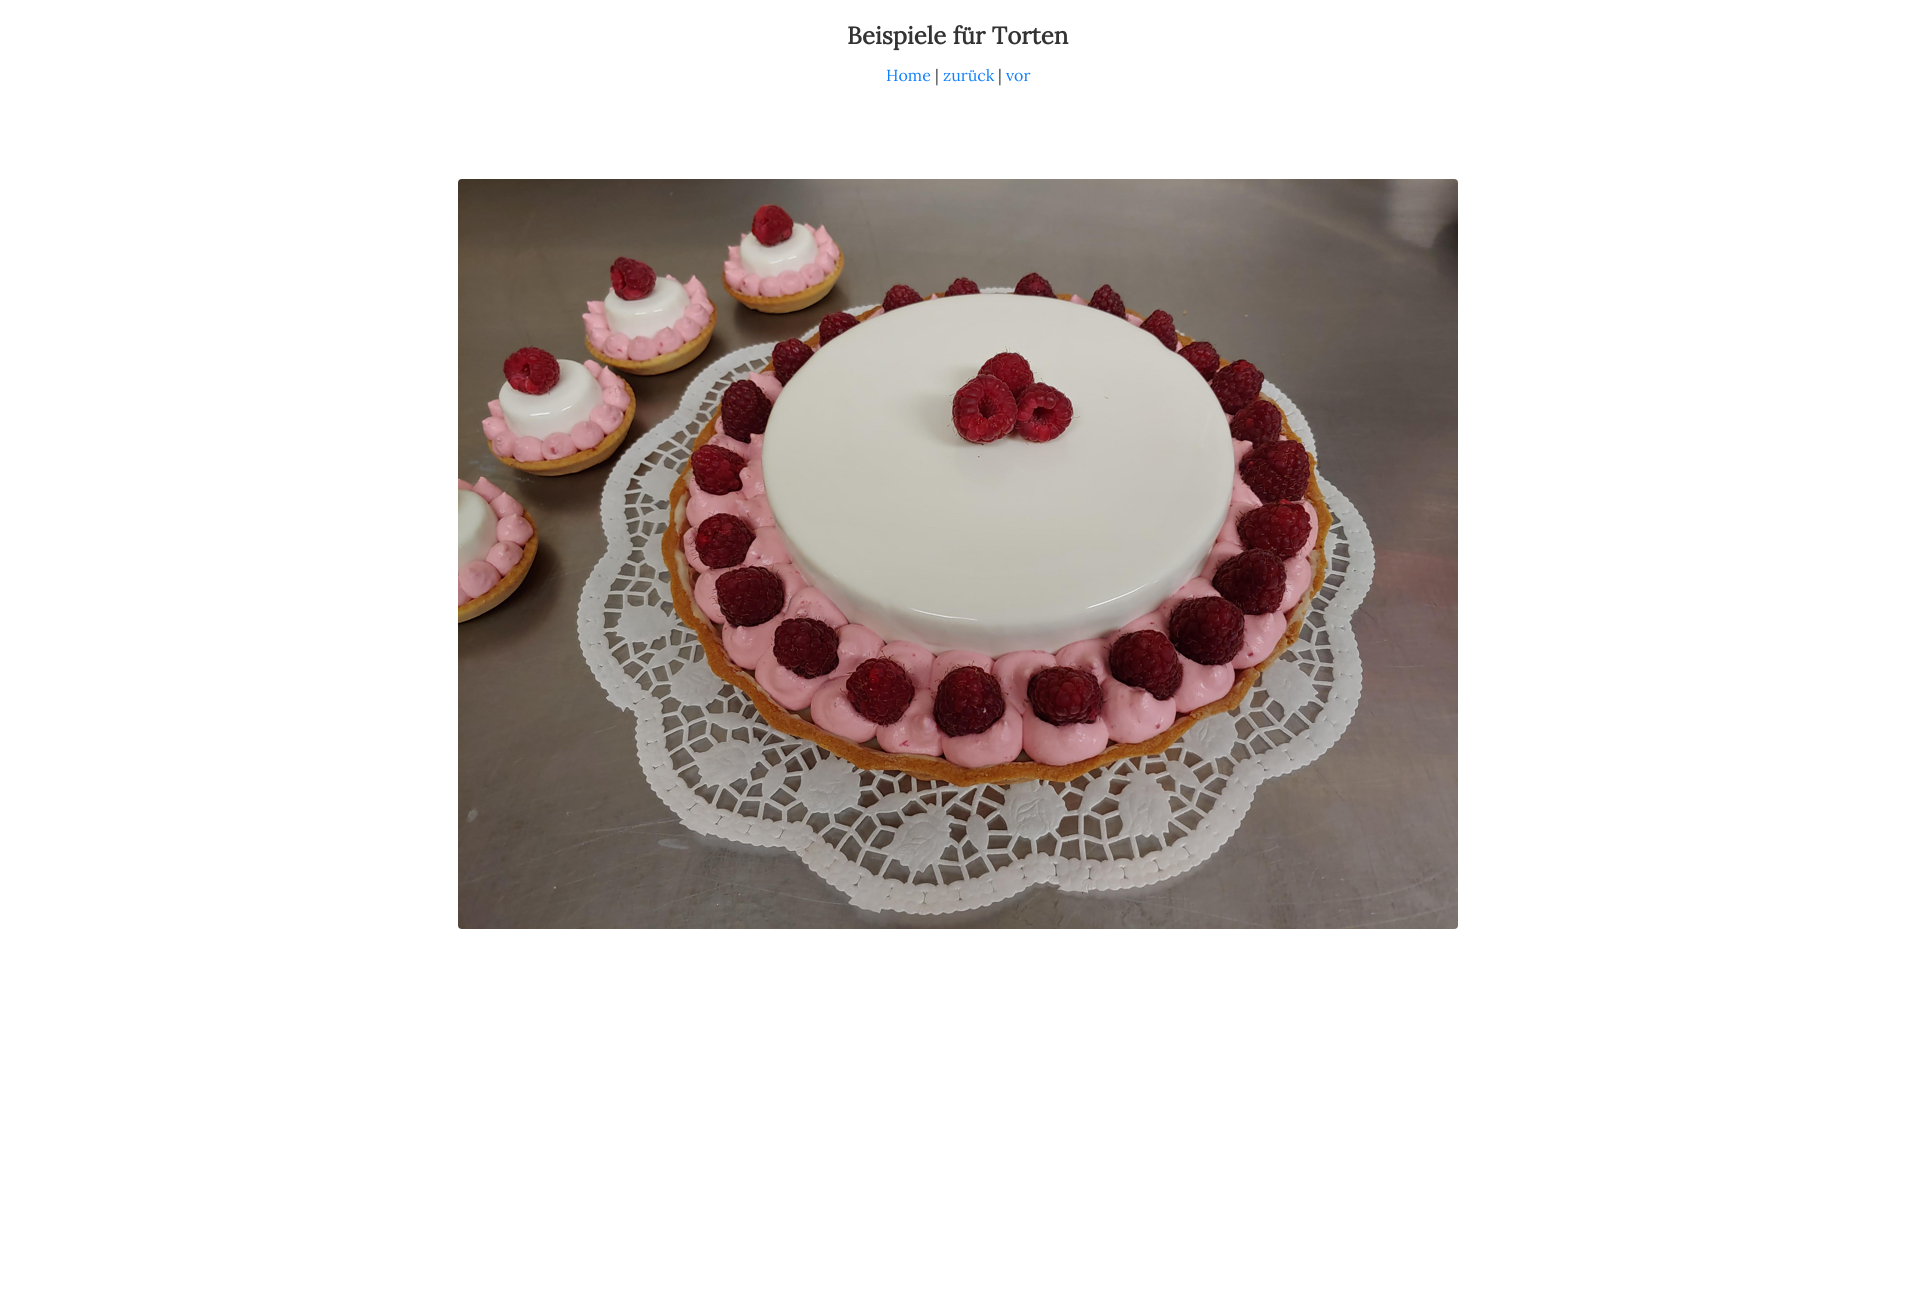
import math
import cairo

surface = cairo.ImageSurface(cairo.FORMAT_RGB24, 1916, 1291)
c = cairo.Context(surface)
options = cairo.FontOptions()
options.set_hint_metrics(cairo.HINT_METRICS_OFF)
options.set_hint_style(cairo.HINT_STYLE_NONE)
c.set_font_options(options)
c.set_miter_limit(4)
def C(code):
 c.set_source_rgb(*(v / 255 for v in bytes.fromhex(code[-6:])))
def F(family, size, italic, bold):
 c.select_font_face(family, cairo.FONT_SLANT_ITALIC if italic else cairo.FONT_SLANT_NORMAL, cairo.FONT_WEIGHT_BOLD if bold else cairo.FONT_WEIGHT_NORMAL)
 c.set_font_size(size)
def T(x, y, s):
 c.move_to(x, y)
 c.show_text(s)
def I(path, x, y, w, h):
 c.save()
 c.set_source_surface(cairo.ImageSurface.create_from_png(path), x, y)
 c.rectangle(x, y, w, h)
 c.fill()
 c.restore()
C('ffffff')
c.paint()
F('Lora',24,0,1)
C('333333')
T(847,44,'Beispiele für Torten')
F('Lora',16,0,0)
C('0f7ffe')
T(886,81,'Home')
C('333333')
T(935,81,'|')
C('0f7ffe')
T(943,81,'zurück')
C('333333')
T(998,81,'|')
C('0f7ffe')
T(1006,81,'vor')
I('1.png',458,179,1000,750)
surface.write_to_png('o.png')
